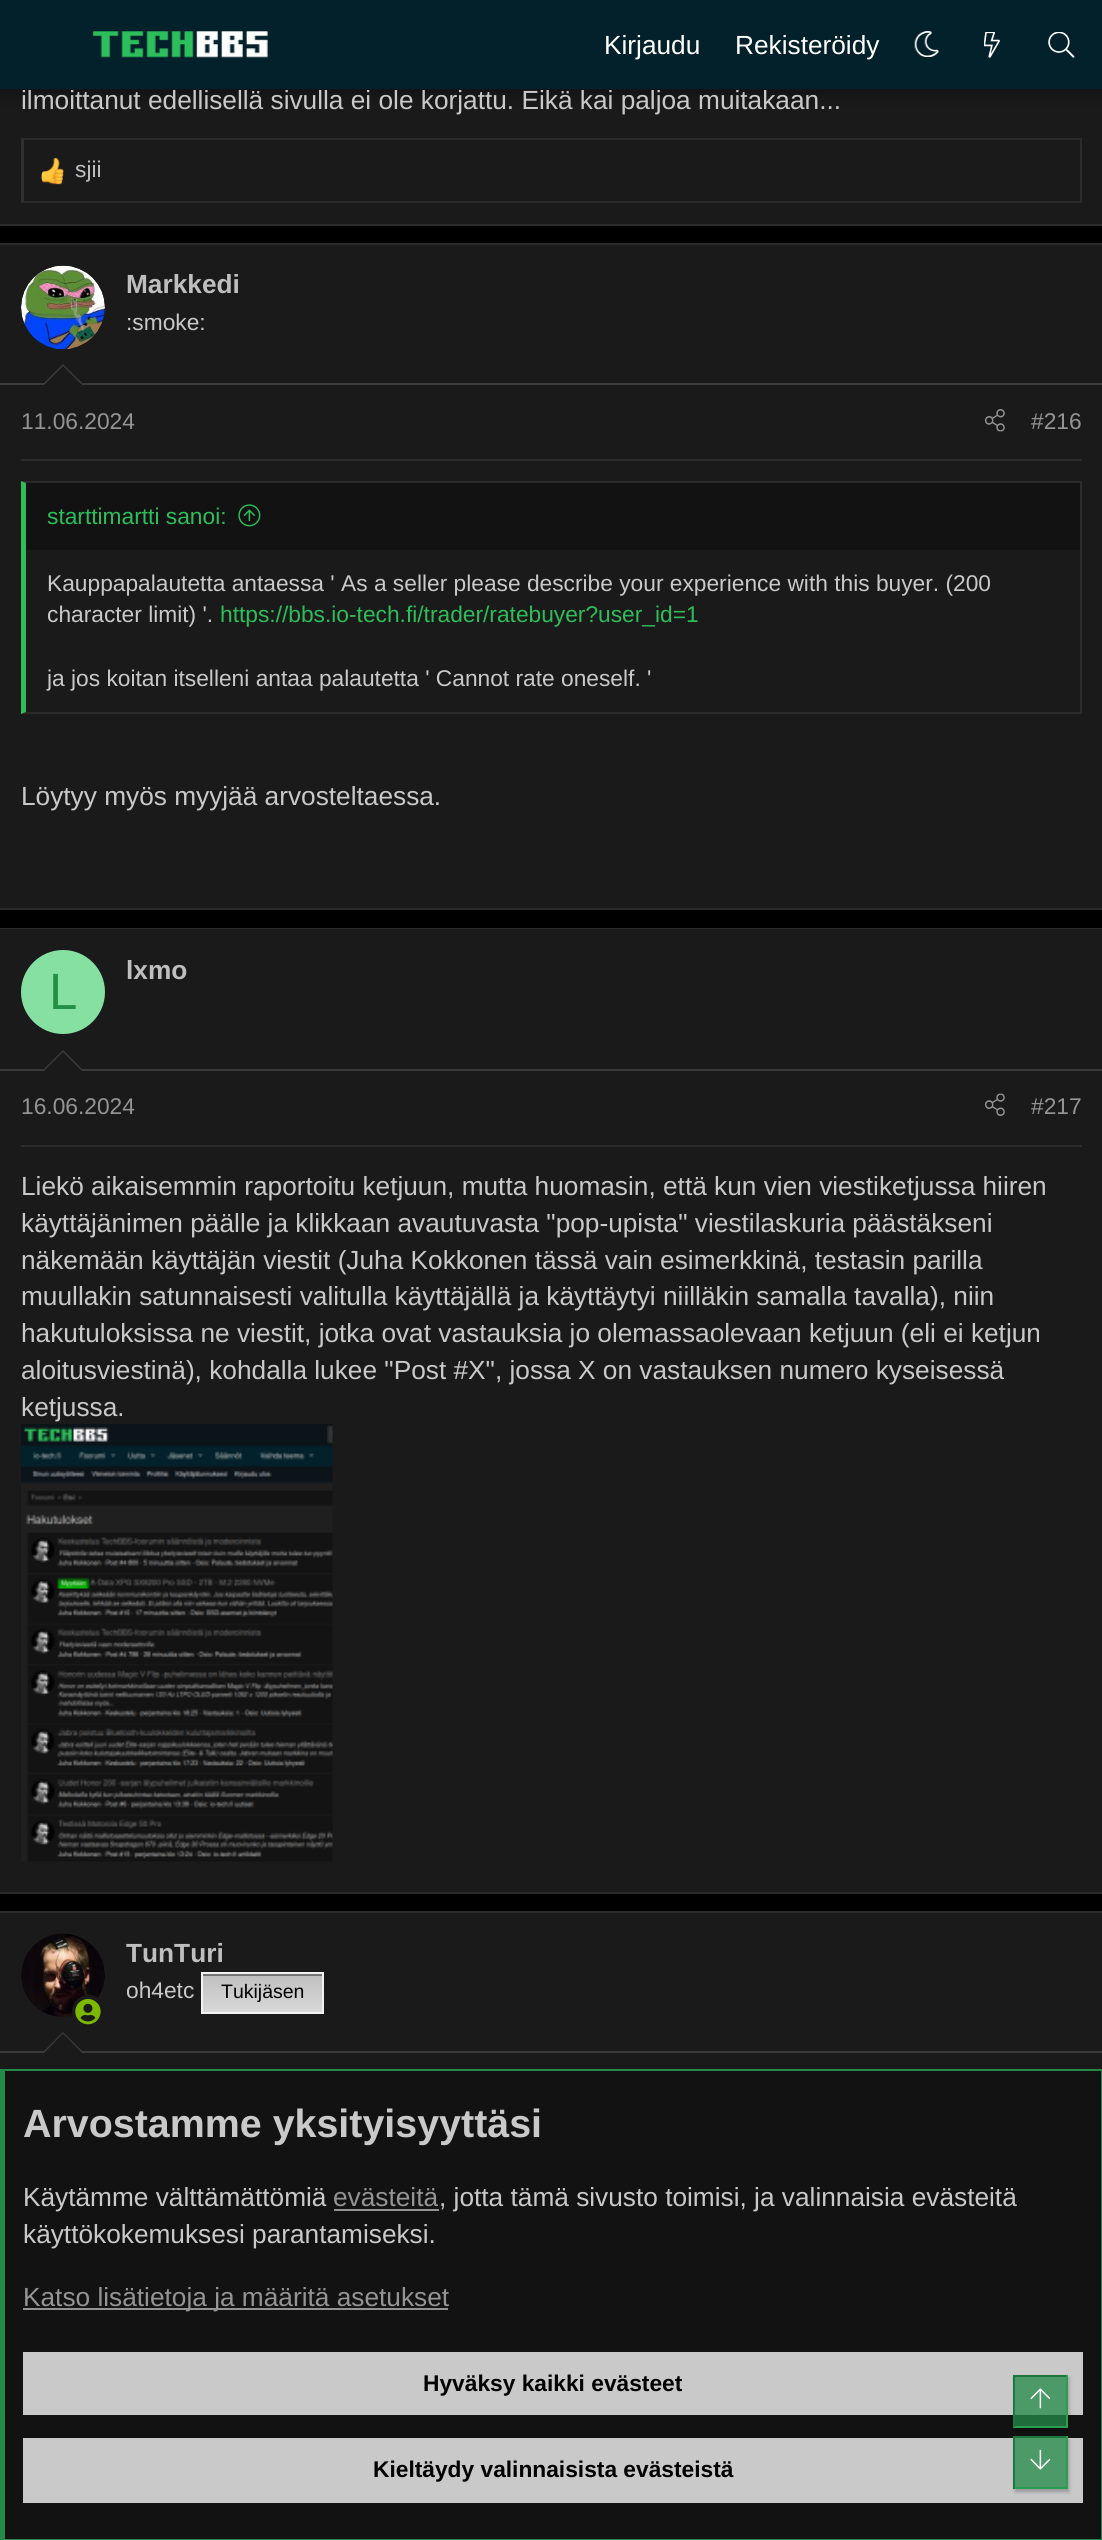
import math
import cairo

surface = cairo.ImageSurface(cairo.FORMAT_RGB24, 1102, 2540)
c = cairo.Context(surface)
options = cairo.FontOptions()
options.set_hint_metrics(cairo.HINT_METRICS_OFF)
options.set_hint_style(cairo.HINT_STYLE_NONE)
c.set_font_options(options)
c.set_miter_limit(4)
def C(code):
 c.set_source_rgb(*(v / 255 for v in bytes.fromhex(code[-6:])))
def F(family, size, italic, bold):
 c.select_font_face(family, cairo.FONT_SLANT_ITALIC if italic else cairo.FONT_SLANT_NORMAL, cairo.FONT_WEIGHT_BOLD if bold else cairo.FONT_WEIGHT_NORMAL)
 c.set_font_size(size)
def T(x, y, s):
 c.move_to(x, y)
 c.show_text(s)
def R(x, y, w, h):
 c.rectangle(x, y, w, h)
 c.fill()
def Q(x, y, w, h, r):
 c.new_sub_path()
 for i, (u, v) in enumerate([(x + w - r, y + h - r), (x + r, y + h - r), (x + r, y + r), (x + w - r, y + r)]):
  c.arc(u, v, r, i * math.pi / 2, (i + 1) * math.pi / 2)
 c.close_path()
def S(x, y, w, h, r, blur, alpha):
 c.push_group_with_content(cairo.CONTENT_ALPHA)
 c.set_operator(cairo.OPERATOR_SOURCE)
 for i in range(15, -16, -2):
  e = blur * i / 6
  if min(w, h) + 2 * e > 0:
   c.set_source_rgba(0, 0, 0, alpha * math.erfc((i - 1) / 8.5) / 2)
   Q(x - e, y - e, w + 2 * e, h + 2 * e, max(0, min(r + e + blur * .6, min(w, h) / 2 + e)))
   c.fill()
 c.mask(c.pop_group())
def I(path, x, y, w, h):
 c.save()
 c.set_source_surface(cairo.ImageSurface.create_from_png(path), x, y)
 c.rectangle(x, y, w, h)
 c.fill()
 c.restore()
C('000000')
c.paint()
C('1a1a1a')
R(0,89,1102,135)
C('000000')
S(-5,-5,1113,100,0,7,.3)
C('03212b')
R(0,0,1102,89)
I('1.png',93,31,175,27)
F('Liberation Sans',26.25,0,0)
C('ffffff')
T(604,54,'Kirjaudu')
T(735,54,'Rekisteröidy')
I('2.png',914,31,25,26)
I('3.png',984,32,16,26)
I('4.png',1048,32,27,26)
C('2b2b2b')
R(0,224,1102,2)
C('c9c9c9')
T(21,109,'ilmoittanut edellisellä sivulla ei ole korjattu. Eikä kai paljoa muitakaan...')
C('2b2b2b')
c.new_path()
c.move_to(21,138)
c.line_to(1082,138)
c.line_to(1080,140)
c.line_to(24,140)
c.close_path()
c.fill()
R(1080,138,2,65)
c.new_path()
c.move_to(1082,203)
c.line_to(21,203)
c.line_to(24,201)
c.line_to(1080,201)
c.close_path()
c.fill()
C('303030')
c.new_path()
c.move_to(21,203)
c.line_to(21,138)
c.line_to(24,140)
c.line_to(24,201)
c.close_path()
c.fill()
I('5.png',41,157,23,28)
F('Liberation Sans',22.75,0,0)
C('bfbfbf')
T(75,177,'sjii')
C('1a1a1a')
R(0,245,1102,663)
C('2b2b2b')
R(0,243,1102,2)
R(0,908,1102,2)
C('3b3b3b')
R(0,383,1102,2)
I('6.png',21,265,84,85)
F('Liberation Sans',26.25,0,1)
C('bfbfbf')
T(126,293,'Markkedi')
F('Liberation Sans',22.75,0,0)
C('c9c9c9')
T(126,330,':smoke:')
C('3b3b3b')
c.new_path()
c.move_to(84,385)
c.line_to(42,385)
c.line_to(63,364)
c.close_path()
c.fill()
C('1a1a1a')
c.new_path()
c.move_to(82,385)
c.line_to(44,385)
c.line_to(63,366)
c.close_path()
c.fill()
C('2b2b2b')
R(21,459,1061,2)
C('949494')
T(21,429,'11.06.2024')
I('7.png',984,409,21,23)
T(1031,429,'#216')
C('2b2b2b')
c.new_path()
c.move_to(21,481)
c.line_to(1082,481)
c.line_to(1080,483)
c.line_to(26,483)
c.close_path()
c.fill()
R(1080,481,2,233)
c.new_path()
c.move_to(1082,714)
c.line_to(21,714)
c.line_to(26,712)
c.line_to(1080,712)
c.close_path()
c.fill()
C('2dbe5b')
c.new_path()
c.move_to(21,714)
c.line_to(21,481)
c.line_to(26,483)
c.line_to(26,712)
c.close_path()
c.fill()
C('121212')
R(26,483,1054,67)
C('2dbe5b')
T(47,524,'starttimartti sanoi:')
I('8.png',238,504,23,23)
C('c9c9c9')
T(47,591,'Kauppapalautetta antaessa \' As a seller please describe your experience with this buyer. (200')
T(47,622,'character limit) \'.')
C('2dbe5b')
T(220,622,'https://bbs.io-tech.fi/trader/ratebuyer?user_id=1')
C('c9c9c9')
T(47,686,'ja jos koitan itselleni antaa palautetta \' Cannot rate oneself. \'')
F('Liberation Sans',26.25,0,0)
T(21,805,'Löytyy myös myyjää arvosteltaessa.')
C('1a1a1a')
R(0,1071,1102,821)
C('2b2b2b')
R(0,928,1102,1)
R(0,1892,1102,2)
C('1a1a1a')
R(0,929,1102,140)
C('3b3b3b')
R(0,1069,1102,2)
F('Liberation Sans',26.25,0,1)
C('bfbfbf')
T(126,979,'lxmo')
C('85e0a2')
c.new_path()
c.arc(63,992,42,0,2 * math.pi)
c.fill()
F('Liberation Sans',51,0,0)
C('248f46')
T(49,1009,'L')
C('3b3b3b')
c.new_path()
c.move_to(84,1071)
c.line_to(42,1071)
c.line_to(63,1050)
c.close_path()
c.fill()
C('1a1a1a')
c.new_path()
c.move_to(82,1071)
c.line_to(44,1071)
c.line_to(63,1052)
c.close_path()
c.fill()
C('2b2b2b')
R(21,1145,1061,2)
F('Liberation Sans',22.75,0,0)
C('949494')
T(21,1114,'16.06.2024')
I('9.png',984,1093,21,23)
T(1031,1114,'#217')
F('Liberation Sans',26.25,0,0)
C('c9c9c9')
T(21,1195,'Liekö aikaisemmin raportoitu ketjuun, mutta huomasin, että kun vien viestiketjussa hiiren')
T(21,1232,'käyttäjänimen päälle ja klikkaan avautuvasta "pop-upista" viestilaskuria päästäkseni')
T(21,1269,'näkemään käyttäjän viestit (Juha Kokkonen tässä vain esimerkkinä, testasin parilla')
T(21,1305,'muullakin satunnaisesti valitulla käyttäjällä ja käyttäytyi niilläkin samalla tavalla), niin')
T(21,1342,'hakutuloksissa ne viestit, jotka ovat vastauksia jo olemassaolevaan ketjuun (eli ei ketjun')
T(21,1379,'aloitusviestinä), kohdalla lukee "Post #X", jossa X on vastauksen numero kyseisessä')
T(21,1416,'ketjussa.')
I('10.png',21,1424,312,438)
C('1a1a1a')
R(0,1913,1102,156)
C('2b2b2b')
R(0,1911,1102,2)
C('3b3b3b')
R(0,2051,1102,2)
I('11.png',21,1933,84,84)
C('1a1a1a')
c.arc(88.5,2011.5,16.5,0,2 * math.pi)
c.fill()
I('12.png',75,1999,26,26)
F('Liberation Sans',26.25,0,1)
C('bfbfbf')
T(126,1962,'TunTuri')
F('Liberation Sans',22.75,0,0)
C('c9c9c9')
T(126,1998,'oh4etc')
gradient = cairo.LinearGradient(263,1974,263,2013)
gradient.add_color_stop_rgba(0,0.749,0.749,0.749,1)
gradient.add_color_stop_rgba(1,0.851,0.851,0.851,1)
c.set_source(gradient)
R(203,1976,119,36)
C('737373')
R(203,1974,119,2)
c.rectangle(202,1973,121,40)
C('f2f2f2')
c.stroke()
F('Liberation Sans',19.5,0,0)
C('000000')
T(221,1998,'Tukijäsen')
C('3b3b3b')
c.new_path()
c.move_to(84,2053)
c.line_to(42,2053)
c.line_to(63,2032)
c.close_path()
c.fill()
C('1a1a1a')
c.new_path()
c.move_to(82,2053)
c.line_to(44,2053)
c.line_to(63,2033.5)
c.close_path()
c.fill()
C('121212')
R(5,2071,1096,468)
C('238b47')
R(0,2069,1102,2)
R(1101,2069,1,471)
R(0,2539,1102,1)
R(0,2069,5,471)
F('Liberation Sans',39.4,0,1)
C('c9c9c9')
T(23,2137,'Arvostamme yksityisyyttäsi')
F('Liberation Sans',26.25,0,0)
T(23,2206,'Käytämme välttämättömiä')
C('949494')
T(333,2206,'evästeitä')
C('929292')
R(334,2209,105,2)
C('c9c9c9')
T(439,2206,', jotta tämä sivusto toimisi, ja valinnaisia evästeitä')
T(23,2243,'käyttökokemuksesi parantamiseksi.')
C('929292')
R(23,2308,425,2)
C('949494')
T(23,2306,'Katso lisätietoja ja määritä asetukset')
C('c9c9c9')
R(23,2352,1060,63)
F('Liberation Sans',22.75,0,1)
C('000000')
T(423,2391,'Hyväksy kaikki evästeet')
C('c9c9c9')
R(23,2438,1060,65)
C('000000')
T(373,2477,'Kieltäydy valinnaisista evästeistä')
c.save()
c.set_fill_rule(cairo.FILL_RULE_EVEN_ODD)
c.new_path()
c.move_to(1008,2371)
c.line_to(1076,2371)
c.line_to(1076,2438)
c.line_to(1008,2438)
c.close_path()
c.move_to(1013,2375)
c.line_to(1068,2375)
c.line_to(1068,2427)
c.line_to(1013,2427)
c.close_path()
c.clip()
C('000000')
S(1015,2378,54,53,0,2,.25)
c.restore()
c.set_source_rgba(0.137,0.545,0.278,0.75)
R(1015,2377,51,49)
C('1e763d')
R(1013,2375,55,2)
C('289f52')
R(1066,2375,2,52)
R(1013,2426,55,2)
C('1e763d')
R(1013,2375,2,52)
I('13.png',1030,2388,21,21)
c.save()
c.set_fill_rule(cairo.FILL_RULE_EVEN_ODD)
c.new_path()
c.move_to(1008,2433)
c.line_to(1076,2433)
c.line_to(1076,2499)
c.line_to(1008,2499)
c.close_path()
c.move_to(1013,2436)
c.line_to(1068,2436)
c.line_to(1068,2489)
c.line_to(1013,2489)
c.close_path()
c.clip()
C('000000')
S(1015,2440,54,52,0,2,.25)
c.restore()
c.set_source_rgba(0.137,0.545,0.278,0.75)
R(1015,2438,51,49)
C('1e763d')
R(1013,2436,55,2)
C('289f52')
R(1066,2436,2,53)
R(1013,2487,55,2)
C('1e763d')
R(1013,2436,2,53)
I('14.png',1030,2449,21,21)
surface.write_to_png('o.png')
